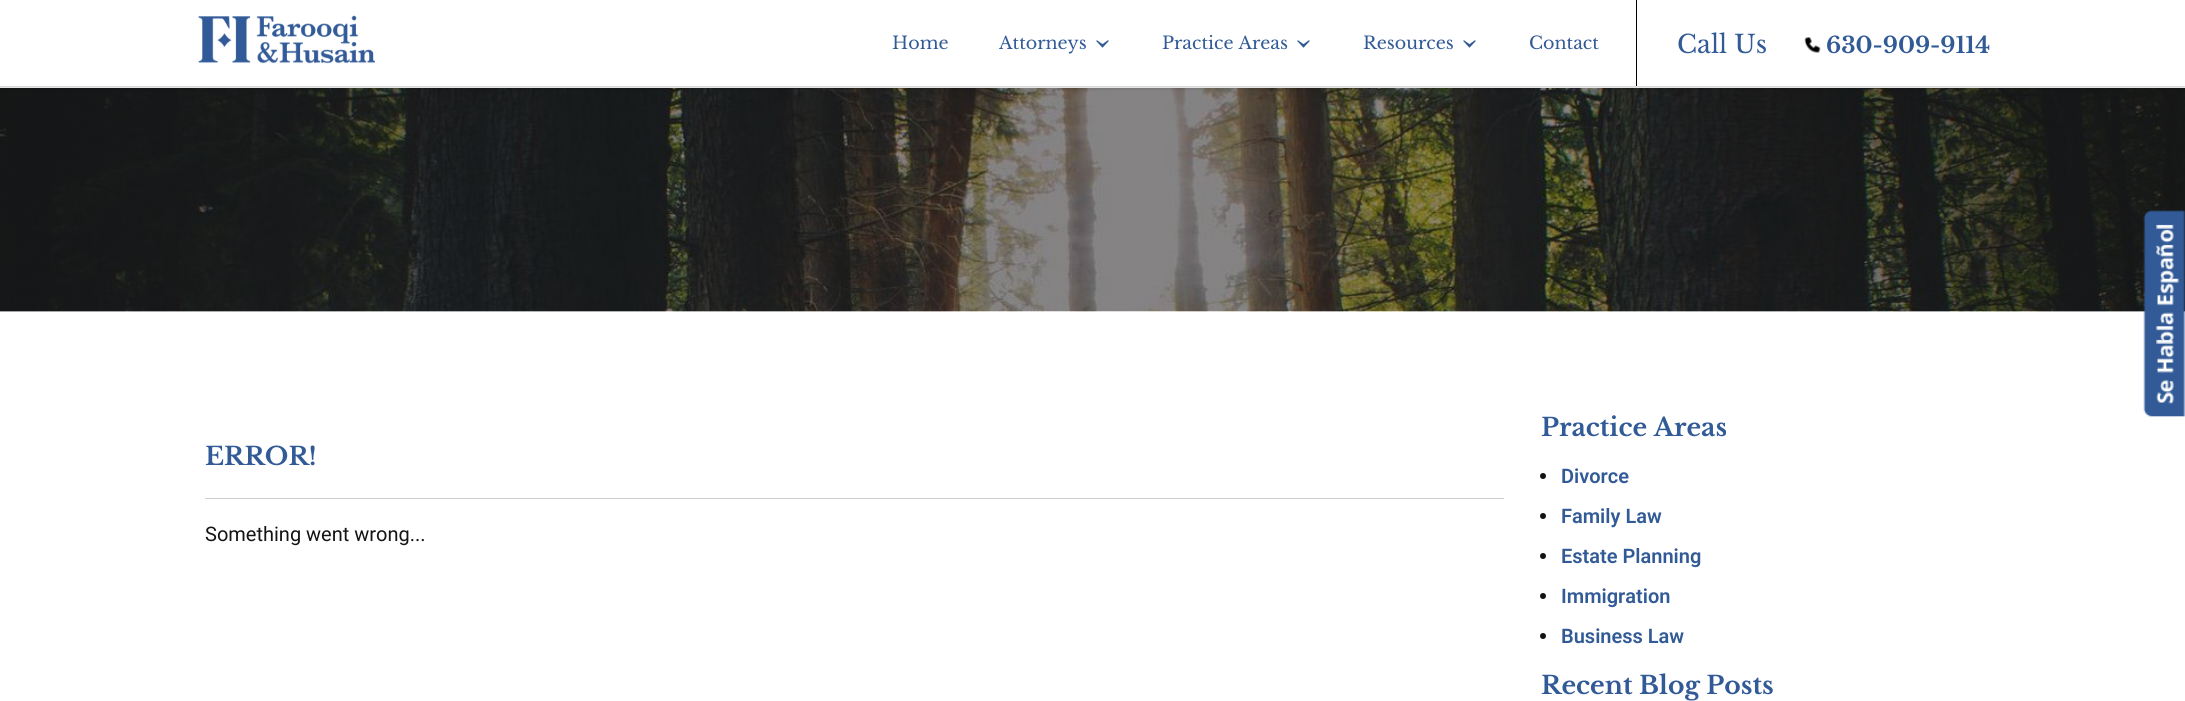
import math
import cairo

surface = cairo.ImageSurface(cairo.FORMAT_RGB24, 2185, 701)
c = cairo.Context(surface)
options = cairo.FontOptions()
options.set_hint_metrics(cairo.HINT_METRICS_OFF)
options.set_hint_style(cairo.HINT_STYLE_NONE)
c.set_font_options(options)
c.set_miter_limit(4)
def C(code):
 c.set_source_rgb(*(v / 255 for v in bytes.fromhex(code[-6:])))
def F(family, size, italic, bold):
 c.select_font_face(family, cairo.FONT_SLANT_ITALIC if italic else cairo.FONT_SLANT_NORMAL, cairo.FONT_WEIGHT_BOLD if bold else cairo.FONT_WEIGHT_NORMAL)
 c.set_font_size(size)
def T(x, y, s):
 c.move_to(x, y)
 c.show_text(s)
def R(x, y, w, h):
 c.rectangle(x, y, w, h)
 c.fill()
def Q(x, y, w, h, r):
 c.new_sub_path()
 for i, (u, v) in enumerate([(x + w - r, y + h - r), (x + r, y + h - r), (x + r, y + r), (x + w - r, y + r)]):
  c.arc(u, v, r, i * math.pi / 2, (i + 1) * math.pi / 2)
 c.close_path()
def S(x, y, w, h, r, blur, alpha):
 c.push_group_with_content(cairo.CONTENT_ALPHA)
 c.set_operator(cairo.OPERATOR_SOURCE)
 for i in range(15, -16, -2):
  e = blur * i / 6
  if min(w, h) + 2 * e > 0:
   c.set_source_rgba(0, 0, 0, alpha * math.erfc((i - 1) / 8.5) / 2)
   Q(x - e, y - e, w + 2 * e, h + 2 * e, max(0, min(r + e + blur * .6, min(w, h) / 2 + e)))
   c.fill()
 c.mask(c.pop_group())
def I(path, x, y, w, h):
 c.save()
 c.set_source_surface(cairo.ImageSurface.create_from_png(path), x, y)
 c.rectangle(x, y, w, h)
 c.fill()
 c.restore()
C('ffffff')
c.paint()
I('1.png',198,15,177,49)
I('2.png',1804,37,17,16)
I('3.png',0,88,2185,224)
c.save()
c.rectangle(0,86,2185,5)
c.clip()
C('000000')
S(0,0,2185,86,0,3,.33)
c.restore()
C('000000')
R(1636,0,1,86)
F('Libre Baskerville',17.5,0,0)
C('315a97')
T(892,49,'Home')
T(999,49,'Attorneys')
F('Libre Baskerville',40,0,0)
c.save()
c.translate(1092,37)
c.rotate(90 * math.pi / 180)
T(0,0,'›')
c.restore()
F('Libre Baskerville',17.5,0,0)
T(1162,49,'Practice Areas')
F('Libre Baskerville',40,0,0)
c.save()
c.translate(1293,37)
c.rotate(90 * math.pi / 180)
T(0,0,'›')
c.restore()
F('Libre Baskerville',17.5,0,0)
T(1363,49,'Resources')
F('Libre Baskerville',40,0,0)
c.save()
c.translate(1459,37)
c.rotate(90 * math.pi / 180)
T(0,0,'›')
c.restore()
F('Libre Baskerville',17.5,0,0)
T(1529,49,'Contact')
F('Libre Baskerville',25,0,0)
T(1677,53,'Call Us')
F('Libre Baskerville',22.5,0,1)
T(1826,53,'630-909-9114')
I('4.png',2143,210,42,207)
C('cccccc')
R(205,498,1299,1)
F('Libre Baskerville',25,0,1)
C('315a97')
T(205,465,'ERROR!')
F('Roboto',20,0,0)
C('141414')
T(205,541,'Something went wrong...')
F('Libre Baskerville',25,0,1)
C('315a97')
T(1541,436,'Practice Areas')
C('141414')
c.new_path()
c.arc(1543,476,3,0,2 * math.pi)
c.fill()
F('Roboto SemiBold',20,0,0)
C('315a97')
T(1561,483,'Divorce')
C('141414')
c.new_path()
c.arc(1543,516,3,0,2 * math.pi)
c.fill()
C('315a97')
T(1561,523,'Family Law')
C('141414')
c.new_path()
c.arc(1543,556,3,0,2 * math.pi)
c.fill()
C('315a97')
T(1561,563,'Estate Planning')
C('141414')
c.new_path()
c.arc(1543,596,3,0,2 * math.pi)
c.fill()
C('315a97')
T(1561,603,'Immigration')
C('141414')
c.new_path()
c.arc(1543,636,3,0,2 * math.pi)
c.fill()
C('315a97')
T(1561,643,'Business Law')
F('Libre Baskerville',25,0,1)
T(1541,694,'Recent Blog Posts')
surface.write_to_png('o.png')
